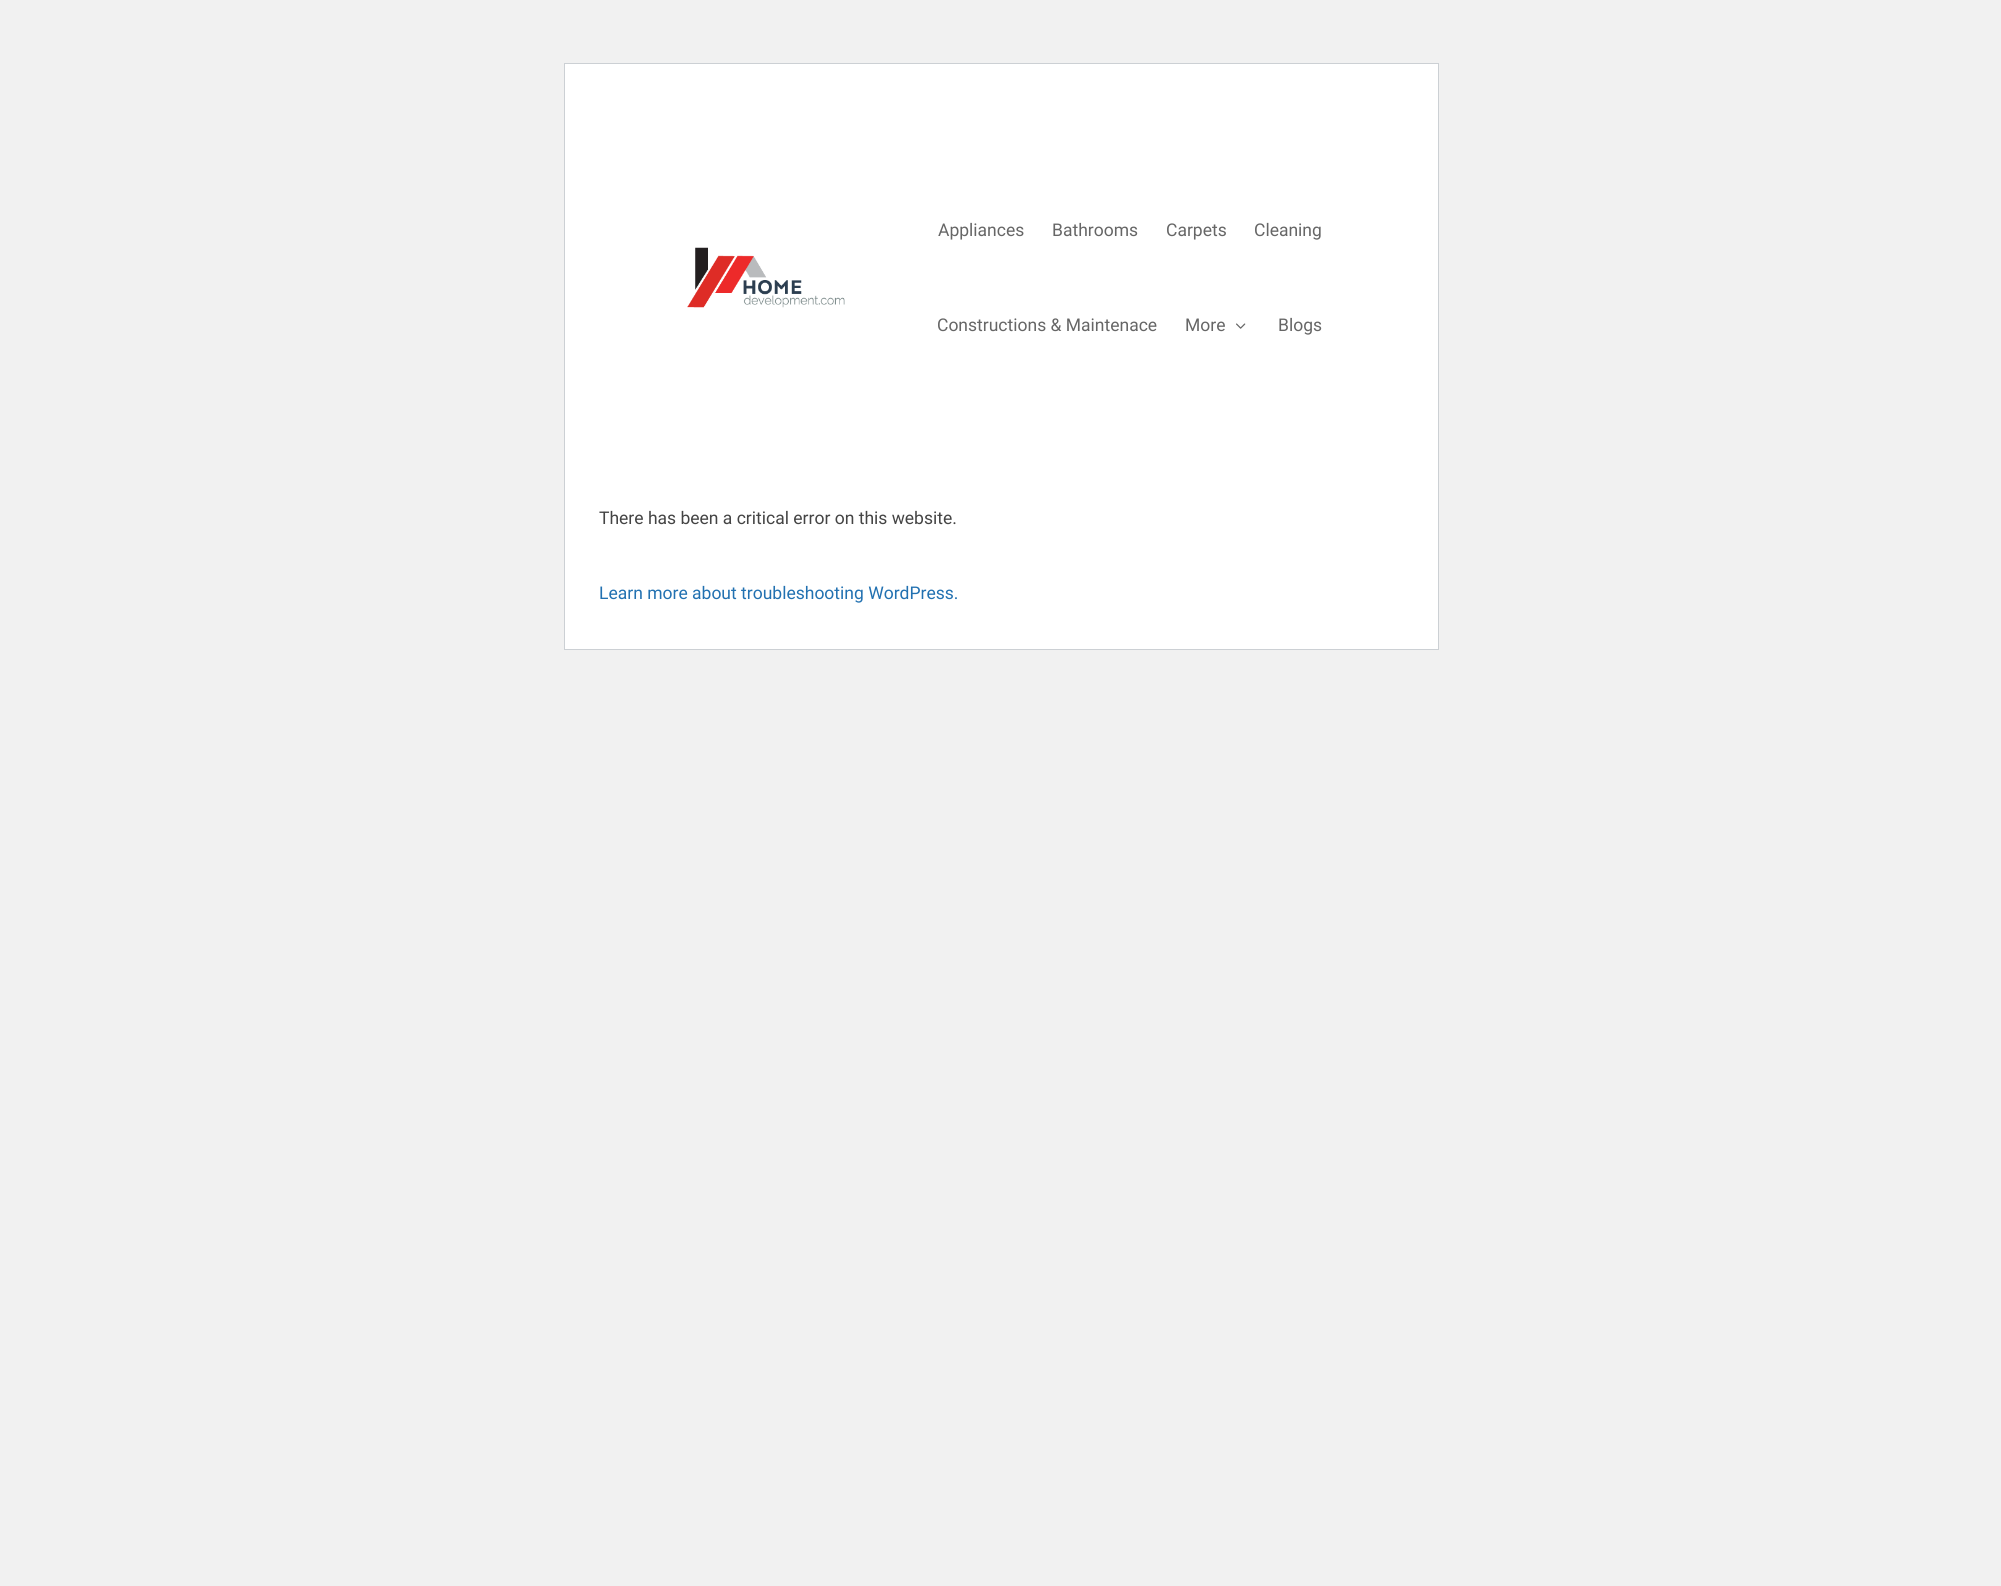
import math
import cairo

surface = cairo.ImageSurface(cairo.FORMAT_RGB24, 2001, 1586)
c = cairo.Context(surface)
options = cairo.FontOptions()
options.set_hint_metrics(cairo.HINT_METRICS_OFF)
options.set_hint_style(cairo.HINT_STYLE_NONE)
c.set_font_options(options)
c.set_miter_limit(4)
def C(code):
 c.set_source_rgb(*(v / 255 for v in bytes.fromhex(code[-6:])))
def F(family, size, italic, bold):
 c.select_font_face(family, cairo.FONT_SLANT_ITALIC if italic else cairo.FONT_SLANT_NORMAL, cairo.FONT_WEIGHT_BOLD if bold else cairo.FONT_WEIGHT_NORMAL)
 c.set_font_size(size)
def T(x, y, s):
 c.move_to(x, y)
 c.show_text(s)
def I(path, x, y, w, h):
 c.save()
 c.set_source_surface(cairo.ImageSurface.create_from_png(path), x, y)
 c.rectangle(x, y, w, h)
 c.fill()
 c.restore()
C('f1f1f1')
c.paint()
C('ffffff')
c.rectangle(564.5,63.5,874,586)
c.fill_preserve()
C('ccd0d4')
c.set_line_width(1)
c.stroke()
I('1.png',687,247,158,61)
F('Roboto',17.5,0,0)
C('666666')
T(938,236,'Appliances')
T(1052,236,'Bathrooms')
T(1166,236,'Carpets')
T(1254,236,'Cleaning')
T(937,331,'Constructions & Maintenace')
T(1185,331,'More')
I('2.png',1236,323,10,6)
T(1278,331,'Blogs')
C('444444')
T(599,524,'There has been a critical error on this website.')
C('2271b1')
T(599,599,'Learn more about troubleshooting WordPress.')
surface.write_to_png('o.png')
